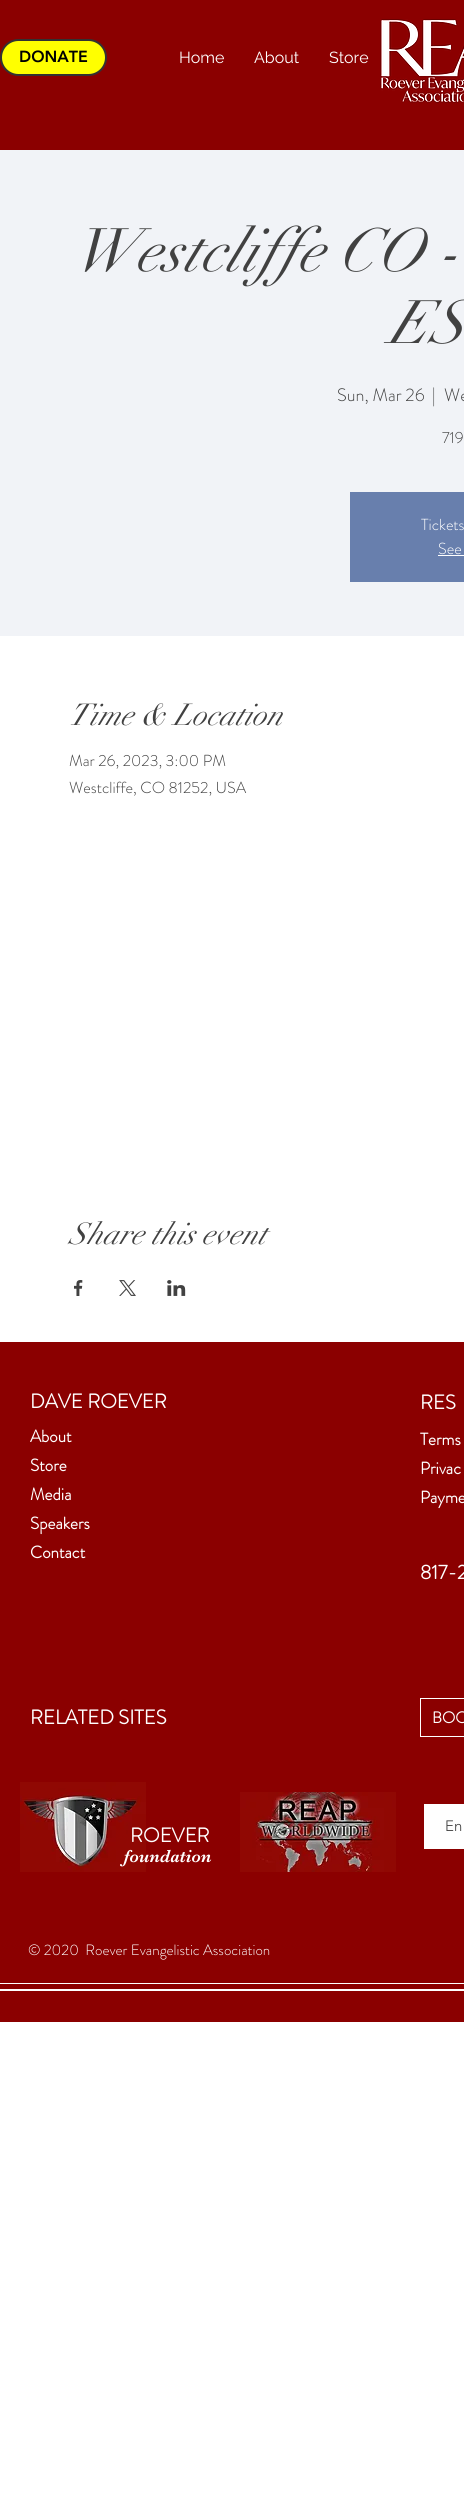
import math
import cairo

surface = cairo.ImageSurface(cairo.FORMAT_RGB24, 464, 2509)
c = cairo.Context(surface)
options = cairo.FontOptions()
options.set_hint_metrics(cairo.HINT_METRICS_OFF)
options.set_hint_style(cairo.HINT_STYLE_NONE)
c.set_font_options(options)
c.set_miter_limit(4)
def C(code):
 c.set_source_rgb(*(v / 255 for v in bytes.fromhex(code[-6:])))
def F(family, size, italic, bold):
 c.select_font_face(family, cairo.FONT_SLANT_ITALIC if italic else cairo.FONT_SLANT_NORMAL, cairo.FONT_WEIGHT_BOLD if bold else cairo.FONT_WEIGHT_NORMAL)
 c.set_font_size(size)
def T(x, y, s):
 c.move_to(x, y)
 c.show_text(s)
def R(x, y, w, h):
 c.rectangle(x, y, w, h)
 c.fill()
def Q(x, y, w, h, r):
 c.new_sub_path()
 for i, (u, v) in enumerate([(x + w - r, y + h - r), (x + r, y + h - r), (x + r, y + r), (x + w - r, y + r)]):
  c.arc(u, v, r, i * math.pi / 2, (i + 1) * math.pi / 2)
 c.close_path()
def I(path, x, y, w, h):
 c.save()
 c.set_source_surface(cairo.ImageSurface.create_from_png(path), x, y)
 c.rectangle(x, y, w, h)
 c.fill()
 c.restore()
C('ffffff')
c.paint()
C('8b0000')
R(0,0,464,150)
C('ffff00')
Q(1,40,105,35,17.5)
c.fill_preserve()
C('323232')
c.stroke()
F('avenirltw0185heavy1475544 Black',16,0,0)
C('000000')
T(19,62,'DONATE')
F('Raleway',16,0,0)
C('ffffff')
T(179,63,'Home')
T(254,63,'About')
T(329,63,'Store')
I('1.png',380,19,84,84)
C('f1f3f7')
R(0,150,464,486)
F('didot',60,1,0)
C('414141')
T(74,271,'Westcliffe CO -')
T(389,343,'ES')
F('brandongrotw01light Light',18,0,0)
T(337,401,'Sun, Mar 26')
T(432,401,'|')
T(444,401,'We')
F('brandongrotw01light Light',16,0,0)
T(442,443,'719')
C('687fad')
R(350,492,114,90)
C('ffffff')
T(421,530,'Tickets')
T(438,554,'See')
R(438,555,26,1)
F('didot',30,1,0)
C('414141')
T(69,725,'Time & Location')
F('brandongrotw01light Light',16,0,0)
T(69,766,'Mar 26, 2023, 3:00 PM')
T(69,793,'Westcliffe, CO 81252, USA')
F('didot',30,1,0)
T(69,1244,'Share this event')
I('2.png',74,1280,9,16)
I('3.png',119,1280,17,16)
I('4.png',167,1280,19,16)
C('8b0000')
R(0,1342,464,680)
F('brandongrotw01light',20,0,1)
C('ffffff')
T(30,1408,'DAVE ROEVER')
T(420,1409,'RES')
F('brandongrotw01light',17,0,1)
T(30,1442,'About')
T(30,1471,'Store')
T(30,1500,'Media')
T(30,1529,'Speakers')
T(30,1558,'Contact')
T(420,1445,'Terms')
T(420,1474,'Privac')
T(420,1503,'Payme')
F('brandongrotw01light',20,0,1)
T(420,1579,'817-2')
T(30,1724,'RELATED SITES')
c.rectangle(420.5,1698.5,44,38)
c.set_line_width(1)
c.stroke()
F('brandongrotw01light',16,0,1)
T(432,1723,'BOO')
I('5.png',20,1782,126,90)
I('6.png',240,1792,156,80)
R(424,1804,40,45)
F('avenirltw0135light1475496 Light',15,0,0)
C('414141')
T(445,1831,'En')
F('brandongrotw01light',20,0,1)
C('ffffff')
T(130,1842,'ROEVER')
F('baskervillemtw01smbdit',18,0,0)
T(124,1862,'foundation')
F('brandongrotw01light Light',15,0,0)
T(28,1955,'© 2020  Roever Evangelistic Association')
R(0,1983,464,1)
R(0,1989,464,2)
surface.write_to_png('o.png')
